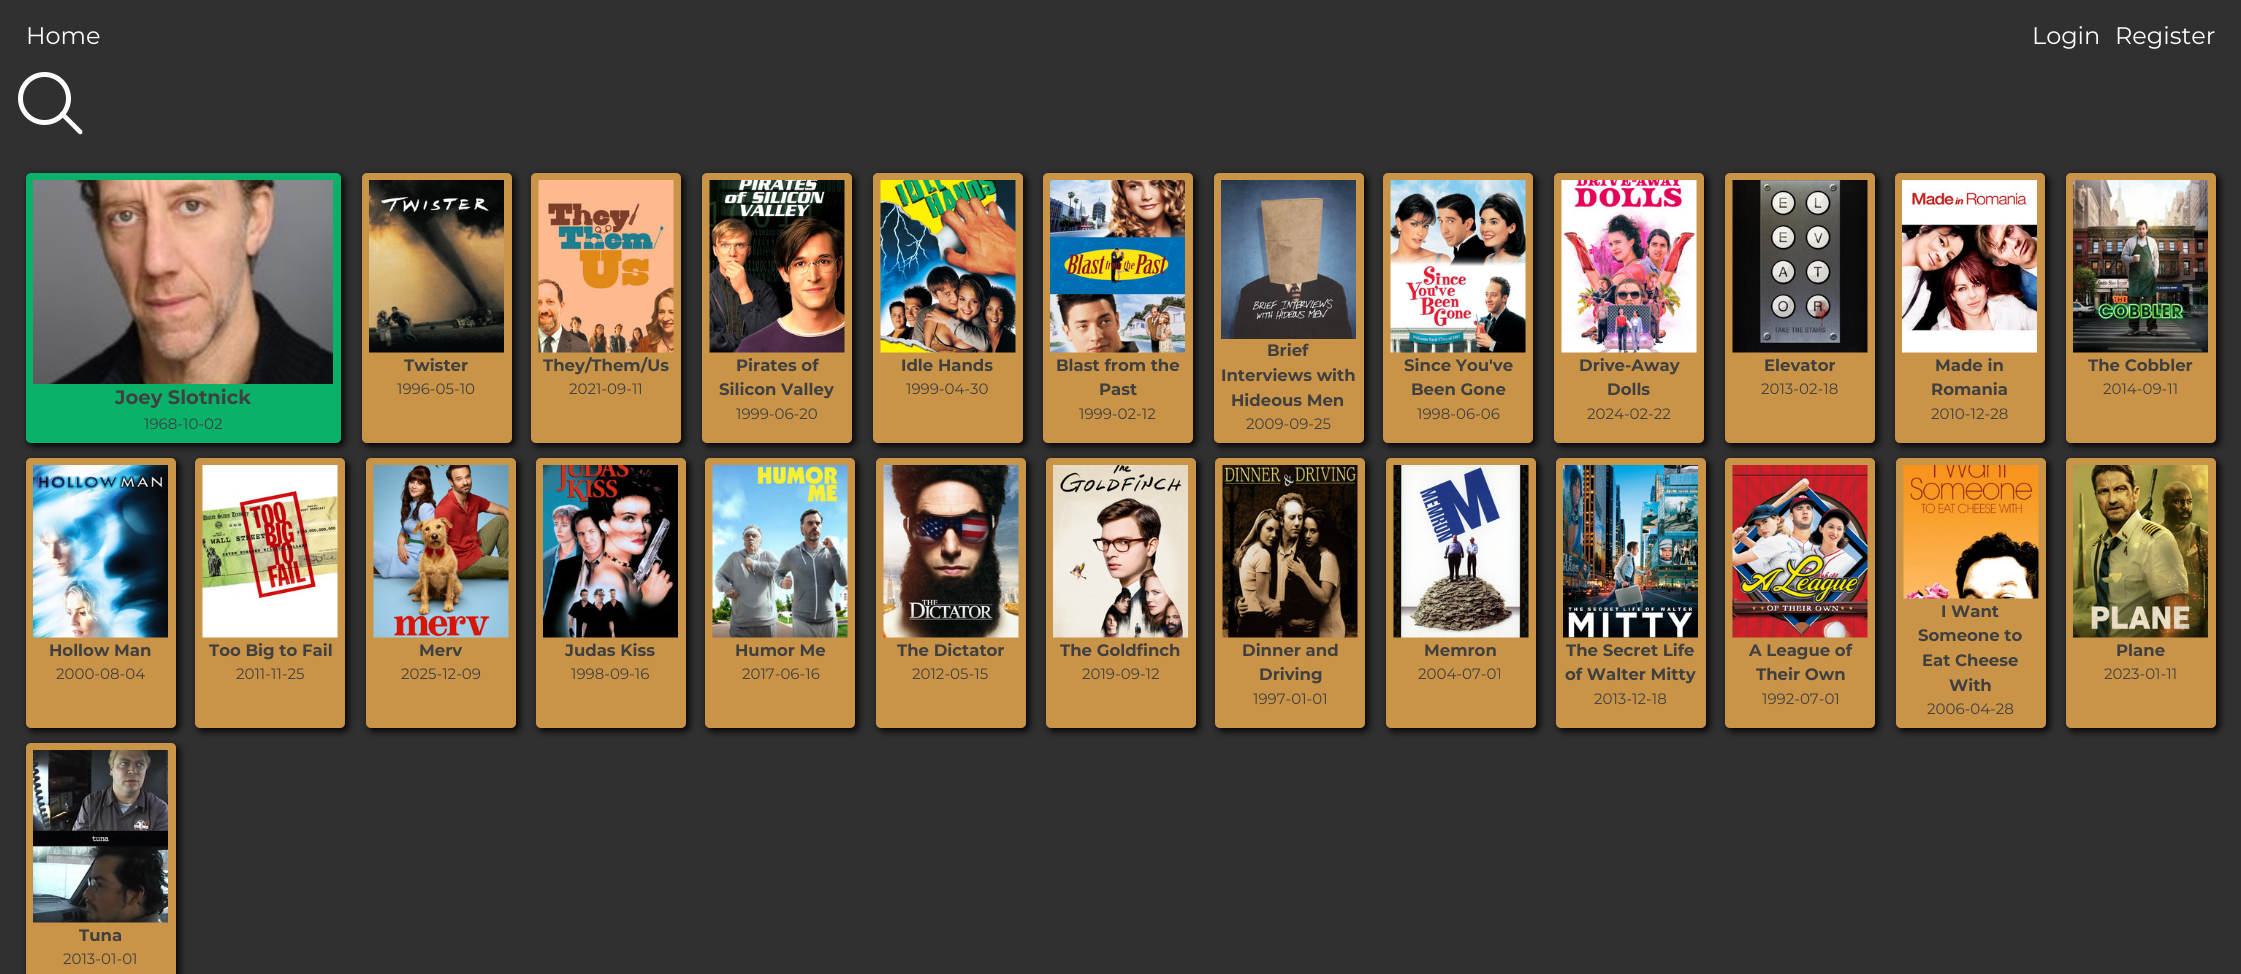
import math
import cairo

surface = cairo.ImageSurface(cairo.FORMAT_RGB24, 2241, 974)
c = cairo.Context(surface)
options = cairo.FontOptions()
options.set_hint_metrics(cairo.HINT_METRICS_OFF)
options.set_hint_style(cairo.HINT_STYLE_NONE)
c.set_font_options(options)
c.set_miter_limit(4)
def C(code):
 c.set_source_rgb(*(v / 255 for v in bytes.fromhex(code[-6:])))
def F(family, size, italic, bold):
 c.select_font_face(family, cairo.FONT_SLANT_ITALIC if italic else cairo.FONT_SLANT_NORMAL, cairo.FONT_WEIGHT_BOLD if bold else cairo.FONT_WEIGHT_NORMAL)
 c.set_font_size(size)
def T(x, y, s):
 c.move_to(x, y)
 c.show_text(s)
def Q(x, y, w, h, r):
 c.new_sub_path()
 for i, (u, v) in enumerate([(x + w - r, y + h - r), (x + r, y + h - r), (x + r, y + r), (x + w - r, y + r)]):
  c.arc(u, v, r, i * math.pi / 2, (i + 1) * math.pi / 2)
 c.close_path()
def S(x, y, w, h, r, blur, alpha):
 c.push_group_with_content(cairo.CONTENT_ALPHA)
 c.set_operator(cairo.OPERATOR_SOURCE)
 for i in range(15, -16, -2):
  e = blur * i / 6
  if min(w, h) + 2 * e > 0:
   c.set_source_rgba(0, 0, 0, alpha * math.erfc((i - 1) / 8.5) / 2)
   Q(x - e, y - e, w + 2 * e, h + 2 * e, max(0, min(r + e + blur * .6, min(w, h) / 2 + e)))
   c.fill()
 c.mask(c.pop_group())
def I(path, x, y, w, h):
 c.save()
 c.set_source_surface(cairo.ImageSurface.create_from_png(path), x, y)
 c.rectangle(x, y, w, h)
 c.fill()
 c.restore()
C('303030')
c.paint()
F('Montserrat',24,0,0)
C('fcfcfc')
T(26,44,'Home')
T(2032,44,'Login')
T(2115,44,'Register')
c.new_path()
c.arc(44.5,98.5,24,0,2 * math.pi)
c.set_line_width(5)
c.stroke()
c.new_path()
c.move_to(60.5,112.5)
c.curve_to(61.5,111.5,63,111.5,64,112.5)
c.line_to(82,130.5)
c.curve_to(82.5,131.5,82.5,132.5,82,133.5)
c.curve_to(81,134.5,79.5,134.5,78.5,133.5)
c.line_to(60.5,115.5)
c.curve_to(60,114.5,60,113.5,60.5,112.5)
c.close_path()
c.fill()
c.save()
c.set_fill_rule(cairo.FILL_RULE_EVEN_ODD)
c.new_path()
c.move_to(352,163)
c.line_to(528,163)
c.line_to(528,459)
c.line_to(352,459)
c.close_path()
c.move_to(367,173)
c.line_to(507,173)
c.curve_to(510,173,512,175,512,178)
c.line_to(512,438)
c.curve_to(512,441,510,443,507,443)
c.line_to(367,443)
c.curve_to(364,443,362,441,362,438)
c.line_to(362,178)
c.curve_to(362,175,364,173,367,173)
c.close_path()
c.clip()
C('000000')
S(365,176,150,270,5,4,1)
c.restore()
c.set_source_rgba(0.941,0.678,0.306,0.8)
Q(362,173,150,270,5)
c.fill()
I('1.png',369,180,135,173)
F('Montserrat',16.5,0,1)
C('404040')
T(404,371,'Twister')
F('Montserrat',15,0,0)
T(397,394,'1996-05-10')
c.save()
c.set_fill_rule(cairo.FILL_RULE_EVEN_ODD)
c.new_path()
c.move_to(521,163)
c.line_to(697,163)
c.line_to(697,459)
c.line_to(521,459)
c.close_path()
c.move_to(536,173)
c.line_to(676,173)
c.curve_to(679,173,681,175,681,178)
c.line_to(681,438)
c.curve_to(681,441,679,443,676,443)
c.line_to(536,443)
c.curve_to(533,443,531,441,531,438)
c.line_to(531,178)
c.curve_to(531,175,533,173,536,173)
c.close_path()
c.clip()
C('000000')
S(534,176,150,270,5,4,1)
c.restore()
c.set_source_rgba(0.941,0.678,0.306,0.8)
Q(531,173,150,270,5)
c.fill()
I('2.png',538,180,136,173)
F('Montserrat',16.5,0,1)
C('404040')
T(543,371,'They/Them/Us')
F('Montserrat',15,0,0)
T(569,394,'2021-09-11')
c.save()
c.set_fill_rule(cairo.FILL_RULE_EVEN_ODD)
c.new_path()
c.move_to(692,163)
c.line_to(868,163)
c.line_to(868,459)
c.line_to(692,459)
c.close_path()
c.move_to(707,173)
c.line_to(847,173)
c.curve_to(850,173,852,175,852,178)
c.line_to(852,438)
c.curve_to(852,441,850,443,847,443)
c.line_to(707,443)
c.curve_to(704,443,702,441,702,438)
c.line_to(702,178)
c.curve_to(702,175,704,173,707,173)
c.close_path()
c.clip()
C('000000')
S(705,176,150,270,5,4,1)
c.restore()
c.set_source_rgba(0.941,0.678,0.306,0.8)
Q(702,173,150,270,5)
c.fill()
I('3.png',709,180,136,173)
F('Montserrat',16.5,0,1)
C('404040')
T(736,371,'Pirates of')
T(719,395,'Silicon Valley')
F('Montserrat',15,0,0)
T(736,419,'1999-06-20')
c.save()
c.set_fill_rule(cairo.FILL_RULE_EVEN_ODD)
c.new_path()
c.move_to(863,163)
c.line_to(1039,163)
c.line_to(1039,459)
c.line_to(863,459)
c.close_path()
c.move_to(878,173)
c.line_to(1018,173)
c.curve_to(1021,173,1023,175,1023,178)
c.line_to(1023,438)
c.curve_to(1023,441,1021,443,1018,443)
c.line_to(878,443)
c.curve_to(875,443,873,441,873,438)
c.line_to(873,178)
c.curve_to(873,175,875,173,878,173)
c.close_path()
c.clip()
C('000000')
S(876,176,150,270,5,4,1)
c.restore()
c.set_source_rgba(0.941,0.678,0.306,0.8)
Q(873,173,150,270,5)
c.fill()
I('4.png',880,180,136,173)
F('Montserrat',16.5,0,1)
C('404040')
T(901,371,'Idle Hands')
F('Montserrat',15,0,0)
T(906,394,'1999-04-30')
c.save()
c.set_fill_rule(cairo.FILL_RULE_EVEN_ODD)
c.new_path()
c.move_to(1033,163)
c.line_to(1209,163)
c.line_to(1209,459)
c.line_to(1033,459)
c.close_path()
c.move_to(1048,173)
c.line_to(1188,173)
c.curve_to(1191,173,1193,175,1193,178)
c.line_to(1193,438)
c.curve_to(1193,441,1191,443,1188,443)
c.line_to(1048,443)
c.curve_to(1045,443,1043,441,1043,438)
c.line_to(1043,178)
c.curve_to(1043,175,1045,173,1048,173)
c.close_path()
c.clip()
C('000000')
S(1046,176,150,270,5,4,1)
c.restore()
c.set_source_rgba(0.941,0.678,0.306,0.8)
Q(1043,173,150,270,5)
c.fill()
I('5.png',1050,180,135,173)
F('Montserrat',16.5,0,1)
C('404040')
T(1056,371,'Blast from the')
T(1099,395,'Past')
F('Montserrat',15,0,0)
T(1079,419,'1999-02-12')
c.save()
c.set_fill_rule(cairo.FILL_RULE_EVEN_ODD)
c.new_path()
c.move_to(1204,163)
c.line_to(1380,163)
c.line_to(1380,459)
c.line_to(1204,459)
c.close_path()
c.move_to(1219,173)
c.line_to(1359,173)
c.curve_to(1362,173,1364,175,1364,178)
c.line_to(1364,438)
c.curve_to(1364,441,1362,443,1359,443)
c.line_to(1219,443)
c.curve_to(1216,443,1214,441,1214,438)
c.line_to(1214,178)
c.curve_to(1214,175,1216,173,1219,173)
c.close_path()
c.clip()
C('000000')
S(1217,176,150,270,5,4,1)
c.restore()
c.set_source_rgba(0.941,0.678,0.306,0.8)
Q(1214,173,150,270,5)
c.fill()
I('6.png',1221,180,135,159)
F('Montserrat',16.5,0,1)
C('404040')
T(1267,356,'Brief')
T(1221,381,'Interviews with')
T(1231,406,'Hideous Men')
F('Montserrat',15,0,0)
T(1246,429,'2009-09-25')
c.save()
c.set_fill_rule(cairo.FILL_RULE_EVEN_ODD)
c.new_path()
c.move_to(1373,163)
c.line_to(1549,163)
c.line_to(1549,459)
c.line_to(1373,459)
c.close_path()
c.move_to(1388,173)
c.line_to(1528,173)
c.curve_to(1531,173,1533,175,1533,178)
c.line_to(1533,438)
c.curve_to(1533,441,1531,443,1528,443)
c.line_to(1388,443)
c.curve_to(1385,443,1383,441,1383,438)
c.line_to(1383,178)
c.curve_to(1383,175,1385,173,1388,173)
c.close_path()
c.clip()
C('000000')
S(1386,176,150,270,5,4,1)
c.restore()
c.set_source_rgba(0.941,0.678,0.306,0.8)
Q(1383,173,150,270,5)
c.fill()
I('7.png',1390,180,136,173)
F('Montserrat',16.5,0,1)
C('404040')
T(1404,371,'Since You\'ve')
T(1411,395,'Been Gone')
F('Montserrat',15,0,0)
T(1417,419,'1998-06-06')
c.save()
c.set_fill_rule(cairo.FILL_RULE_EVEN_ODD)
c.new_path()
c.move_to(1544,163)
c.line_to(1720,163)
c.line_to(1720,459)
c.line_to(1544,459)
c.close_path()
c.move_to(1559,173)
c.line_to(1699,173)
c.curve_to(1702,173,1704,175,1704,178)
c.line_to(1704,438)
c.curve_to(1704,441,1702,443,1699,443)
c.line_to(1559,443)
c.curve_to(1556,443,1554,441,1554,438)
c.line_to(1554,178)
c.curve_to(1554,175,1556,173,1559,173)
c.close_path()
c.clip()
C('000000')
S(1557,176,150,270,5,4,1)
c.restore()
c.set_source_rgba(0.941,0.678,0.306,0.8)
Q(1554,173,150,270,5)
c.fill()
I('8.png',1561,180,136,173)
F('Montserrat',16.5,0,1)
C('404040')
T(1579,371,'Drive-Away')
T(1607,395,'Dolls')
F('Montserrat',15,0,0)
T(1587,419,'2024-02-22')
c.save()
c.set_fill_rule(cairo.FILL_RULE_EVEN_ODD)
c.new_path()
c.move_to(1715,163)
c.line_to(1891,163)
c.line_to(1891,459)
c.line_to(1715,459)
c.close_path()
c.move_to(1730,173)
c.line_to(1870,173)
c.curve_to(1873,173,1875,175,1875,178)
c.line_to(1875,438)
c.curve_to(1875,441,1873,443,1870,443)
c.line_to(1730,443)
c.curve_to(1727,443,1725,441,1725,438)
c.line_to(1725,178)
c.curve_to(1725,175,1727,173,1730,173)
c.close_path()
c.clip()
C('000000')
S(1728,176,150,270,5,4,1)
c.restore()
c.set_source_rgba(0.941,0.678,0.306,0.8)
Q(1725,173,150,270,5)
c.fill()
I('9.png',1732,180,136,173)
F('Montserrat',16.5,0,1)
C('404040')
T(1764,371,'Elevator')
F('Montserrat',15,0,0)
T(1761,394,'2013-02-18')
c.save()
c.set_fill_rule(cairo.FILL_RULE_EVEN_ODD)
c.new_path()
c.move_to(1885,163)
c.line_to(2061,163)
c.line_to(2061,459)
c.line_to(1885,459)
c.close_path()
c.move_to(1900,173)
c.line_to(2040,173)
c.curve_to(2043,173,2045,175,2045,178)
c.line_to(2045,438)
c.curve_to(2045,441,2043,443,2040,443)
c.line_to(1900,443)
c.curve_to(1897,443,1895,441,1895,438)
c.line_to(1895,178)
c.curve_to(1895,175,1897,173,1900,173)
c.close_path()
c.clip()
C('000000')
S(1898,176,150,270,5,4,1)
c.restore()
c.set_source_rgba(0.941,0.678,0.306,0.8)
Q(1895,173,150,270,5)
c.fill()
I('10.png',1902,180,135,173)
F('Montserrat',16.5,0,1)
C('404040')
T(1935,371,'Made in')
T(1931,395,'Romania')
F('Montserrat',15,0,0)
T(1931,419,'2010-12-28')
c.save()
c.set_fill_rule(cairo.FILL_RULE_EVEN_ODD)
c.new_path()
c.move_to(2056,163)
c.line_to(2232,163)
c.line_to(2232,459)
c.line_to(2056,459)
c.close_path()
c.move_to(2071,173)
c.line_to(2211,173)
c.curve_to(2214,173,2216,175,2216,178)
c.line_to(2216,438)
c.curve_to(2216,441,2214,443,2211,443)
c.line_to(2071,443)
c.curve_to(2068,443,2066,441,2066,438)
c.line_to(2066,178)
c.curve_to(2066,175,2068,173,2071,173)
c.close_path()
c.clip()
C('000000')
S(2069,176,150,270,5,4,1)
c.restore()
c.set_source_rgba(0.941,0.678,0.306,0.8)
Q(2066,173,150,270,5)
c.fill()
I('11.png',2073,180,135,173)
F('Montserrat',16.5,0,1)
C('404040')
T(2088,371,'The Cobbler')
F('Montserrat',15,0,0)
T(2103,394,'2014-09-11')
c.save()
c.set_fill_rule(cairo.FILL_RULE_EVEN_ODD)
c.new_path()
c.move_to(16,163)
c.line_to(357,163)
c.line_to(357,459)
c.line_to(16,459)
c.close_path()
c.move_to(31,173)
c.line_to(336,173)
c.curve_to(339,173,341,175,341,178)
c.line_to(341,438)
c.curve_to(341,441,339,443,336,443)
c.line_to(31,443)
c.curve_to(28,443,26,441,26,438)
c.line_to(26,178)
c.curve_to(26,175,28,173,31,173)
c.close_path()
c.clip()
C('000000')
S(29,176,315,270,5,4,1)
c.restore()
c.set_source_rgba(0.004,0.824,0.467,0.8)
Q(26,173,315,270,5)
c.fill()
I('12.png',33,180,300,204)
F('Montserrat',19.5,0,1)
C('404040')
T(115,404,'Joey Slotnick')
F('Montserrat',15,0,0)
T(144,429,'1968-10-02')
c.save()
c.set_fill_rule(cairo.FILL_RULE_EVEN_ODD)
c.new_path()
c.move_to(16,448)
c.line_to(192,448)
c.line_to(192,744)
c.line_to(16,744)
c.close_path()
c.move_to(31,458)
c.line_to(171,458)
c.curve_to(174,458,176,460,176,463)
c.line_to(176,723)
c.curve_to(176,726,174,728,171,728)
c.line_to(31,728)
c.curve_to(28,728,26,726,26,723)
c.line_to(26,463)
c.curve_to(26,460,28,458,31,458)
c.close_path()
c.clip()
C('000000')
S(29,461,150,270,5,4,1)
c.restore()
c.set_source_rgba(0.941,0.678,0.306,0.8)
Q(26,458,150,270,5)
c.fill()
I('13.png',33,465,135,173)
F('Montserrat',16.5,0,1)
C('404040')
T(49,656,'Hollow Man')
F('Montserrat',15,0,0)
T(56,679,'2000-08-04')
c.save()
c.set_fill_rule(cairo.FILL_RULE_EVEN_ODD)
c.new_path()
c.move_to(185,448)
c.line_to(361,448)
c.line_to(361,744)
c.line_to(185,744)
c.close_path()
c.move_to(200,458)
c.line_to(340,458)
c.curve_to(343,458,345,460,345,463)
c.line_to(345,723)
c.curve_to(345,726,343,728,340,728)
c.line_to(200,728)
c.curve_to(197,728,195,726,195,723)
c.line_to(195,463)
c.curve_to(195,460,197,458,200,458)
c.close_path()
c.clip()
C('000000')
S(198,461,150,270,5,4,1)
c.restore()
c.set_source_rgba(0.941,0.678,0.306,0.8)
Q(195,458,150,270,5)
c.fill()
I('14.png',202,465,136,173)
F('Montserrat',16.5,0,1)
C('404040')
T(209,656,'Too Big to Fail')
F('Montserrat',15,0,0)
T(236,679,'2011-11-25')
c.save()
c.set_fill_rule(cairo.FILL_RULE_EVEN_ODD)
c.new_path()
c.move_to(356,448)
c.line_to(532,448)
c.line_to(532,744)
c.line_to(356,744)
c.close_path()
c.move_to(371,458)
c.line_to(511,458)
c.curve_to(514,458,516,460,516,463)
c.line_to(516,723)
c.curve_to(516,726,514,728,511,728)
c.line_to(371,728)
c.curve_to(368,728,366,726,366,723)
c.line_to(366,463)
c.curve_to(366,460,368,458,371,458)
c.close_path()
c.clip()
C('000000')
S(369,461,150,270,5,4,1)
c.restore()
c.set_source_rgba(0.941,0.678,0.306,0.8)
Q(366,458,150,270,5)
c.fill()
I('15.png',373,465,136,173)
F('Montserrat',16.5,0,1)
C('404040')
T(419,656,'Merv')
F('Montserrat',15,0,0)
T(401,679,'2025-12-09')
c.save()
c.set_fill_rule(cairo.FILL_RULE_EVEN_ODD)
c.new_path()
c.move_to(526,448)
c.line_to(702,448)
c.line_to(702,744)
c.line_to(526,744)
c.close_path()
c.move_to(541,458)
c.line_to(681,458)
c.curve_to(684,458,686,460,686,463)
c.line_to(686,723)
c.curve_to(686,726,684,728,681,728)
c.line_to(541,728)
c.curve_to(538,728,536,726,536,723)
c.line_to(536,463)
c.curve_to(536,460,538,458,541,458)
c.close_path()
c.clip()
C('000000')
S(539,461,150,270,5,4,1)
c.restore()
c.set_source_rgba(0.941,0.678,0.306,0.8)
Q(536,458,150,270,5)
c.fill()
I('16.png',543,465,135,173)
F('Montserrat',16.5,0,1)
C('404040')
T(565,656,'Judas Kiss')
F('Montserrat',15,0,0)
T(571,679,'1998-09-16')
c.save()
c.set_fill_rule(cairo.FILL_RULE_EVEN_ODD)
c.new_path()
c.move_to(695,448)
c.line_to(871,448)
c.line_to(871,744)
c.line_to(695,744)
c.close_path()
c.move_to(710,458)
c.line_to(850,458)
c.curve_to(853,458,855,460,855,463)
c.line_to(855,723)
c.curve_to(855,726,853,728,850,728)
c.line_to(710,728)
c.curve_to(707,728,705,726,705,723)
c.line_to(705,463)
c.curve_to(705,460,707,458,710,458)
c.close_path()
c.clip()
C('000000')
S(708,461,150,270,5,4,1)
c.restore()
c.set_source_rgba(0.941,0.678,0.306,0.8)
Q(705,458,150,270,5)
c.fill()
I('17.png',712,465,136,173)
F('Montserrat',16.5,0,1)
C('404040')
T(735,656,'Humor Me')
F('Montserrat',15,0,0)
T(742,679,'2017-06-16')
c.save()
c.set_fill_rule(cairo.FILL_RULE_EVEN_ODD)
c.new_path()
c.move_to(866,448)
c.line_to(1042,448)
c.line_to(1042,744)
c.line_to(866,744)
c.close_path()
c.move_to(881,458)
c.line_to(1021,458)
c.curve_to(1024,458,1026,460,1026,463)
c.line_to(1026,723)
c.curve_to(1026,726,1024,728,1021,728)
c.line_to(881,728)
c.curve_to(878,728,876,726,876,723)
c.line_to(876,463)
c.curve_to(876,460,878,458,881,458)
c.close_path()
c.clip()
C('000000')
S(879,461,150,270,5,4,1)
c.restore()
c.set_source_rgba(0.941,0.678,0.306,0.8)
Q(876,458,150,270,5)
c.fill()
I('18.png',883,465,136,173)
F('Montserrat',16.5,0,1)
C('404040')
T(897,656,'The Dictator')
F('Montserrat',15,0,0)
T(912,679,'2012-05-15')
c.save()
c.set_fill_rule(cairo.FILL_RULE_EVEN_ODD)
c.new_path()
c.move_to(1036,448)
c.line_to(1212,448)
c.line_to(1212,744)
c.line_to(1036,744)
c.close_path()
c.move_to(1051,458)
c.line_to(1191,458)
c.curve_to(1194,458,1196,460,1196,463)
c.line_to(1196,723)
c.curve_to(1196,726,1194,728,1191,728)
c.line_to(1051,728)
c.curve_to(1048,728,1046,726,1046,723)
c.line_to(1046,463)
c.curve_to(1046,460,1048,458,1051,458)
c.close_path()
c.clip()
C('000000')
S(1049,461,150,270,5,4,1)
c.restore()
c.set_source_rgba(0.941,0.678,0.306,0.8)
Q(1046,458,150,270,5)
c.fill()
I('19.png',1053,465,135,173)
F('Montserrat',16.5,0,1)
C('404040')
T(1060,656,'The Goldfinch')
F('Montserrat',15,0,0)
T(1082,679,'2019-09-12')
c.save()
c.set_fill_rule(cairo.FILL_RULE_EVEN_ODD)
c.new_path()
c.move_to(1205,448)
c.line_to(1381,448)
c.line_to(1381,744)
c.line_to(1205,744)
c.close_path()
c.move_to(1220,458)
c.line_to(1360,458)
c.curve_to(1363,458,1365,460,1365,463)
c.line_to(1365,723)
c.curve_to(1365,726,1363,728,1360,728)
c.line_to(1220,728)
c.curve_to(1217,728,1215,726,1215,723)
c.line_to(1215,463)
c.curve_to(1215,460,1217,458,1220,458)
c.close_path()
c.clip()
C('000000')
S(1218,461,150,270,5,4,1)
c.restore()
c.set_source_rgba(0.941,0.678,0.306,0.8)
Q(1215,458,150,270,5)
c.fill()
I('20.png',1222,465,136,173)
F('Montserrat',16.5,0,1)
C('404040')
T(1242,656,'Dinner and')
T(1259,680,'Driving')
F('Montserrat',15,0,0)
T(1253,704,'1997-01-01')
c.save()
c.set_fill_rule(cairo.FILL_RULE_EVEN_ODD)
c.new_path()
c.move_to(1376,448)
c.line_to(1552,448)
c.line_to(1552,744)
c.line_to(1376,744)
c.close_path()
c.move_to(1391,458)
c.line_to(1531,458)
c.curve_to(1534,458,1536,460,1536,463)
c.line_to(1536,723)
c.curve_to(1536,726,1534,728,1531,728)
c.line_to(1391,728)
c.curve_to(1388,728,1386,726,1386,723)
c.line_to(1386,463)
c.curve_to(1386,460,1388,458,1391,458)
c.close_path()
c.clip()
C('000000')
S(1389,461,150,270,5,4,1)
c.restore()
c.set_source_rgba(0.941,0.678,0.306,0.8)
Q(1386,458,150,270,5)
c.fill()
I('21.png',1393,465,136,173)
F('Montserrat',16.5,0,1)
C('404040')
T(1424,656,'Memron')
F('Montserrat',15,0,0)
T(1418,679,'2004-07-01')
c.save()
c.set_fill_rule(cairo.FILL_RULE_EVEN_ODD)
c.new_path()
c.move_to(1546,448)
c.line_to(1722,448)
c.line_to(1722,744)
c.line_to(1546,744)
c.close_path()
c.move_to(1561,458)
c.line_to(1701,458)
c.curve_to(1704,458,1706,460,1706,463)
c.line_to(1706,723)
c.curve_to(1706,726,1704,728,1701,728)
c.line_to(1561,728)
c.curve_to(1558,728,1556,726,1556,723)
c.line_to(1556,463)
c.curve_to(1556,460,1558,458,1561,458)
c.close_path()
c.clip()
C('000000')
S(1559,461,150,270,5,4,1)
c.restore()
c.set_source_rgba(0.941,0.678,0.306,0.8)
Q(1556,458,150,270,5)
c.fill()
I('22.png',1563,465,135,173)
F('Montserrat',16.5,0,1)
C('404040')
T(1566,656,'The Secret Life')
T(1565,680,'of Walter Mitty')
F('Montserrat',15,0,0)
T(1594,704,'2013-12-18')
c.save()
c.set_fill_rule(cairo.FILL_RULE_EVEN_ODD)
c.new_path()
c.move_to(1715,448)
c.line_to(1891,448)
c.line_to(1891,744)
c.line_to(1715,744)
c.close_path()
c.move_to(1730,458)
c.line_to(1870,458)
c.curve_to(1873,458,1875,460,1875,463)
c.line_to(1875,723)
c.curve_to(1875,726,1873,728,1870,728)
c.line_to(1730,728)
c.curve_to(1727,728,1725,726,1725,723)
c.line_to(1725,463)
c.curve_to(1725,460,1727,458,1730,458)
c.close_path()
c.clip()
C('000000')
S(1728,461,150,270,5,4,1)
c.restore()
c.set_source_rgba(0.941,0.678,0.306,0.8)
Q(1725,458,150,270,5)
c.fill()
I('23.png',1732,465,136,173)
F('Montserrat',16.5,0,1)
C('404040')
T(1749,656,'A League of')
T(1756,680,'Their Own')
F('Montserrat',15,0,0)
T(1762,704,'1992-07-01')
c.save()
c.set_fill_rule(cairo.FILL_RULE_EVEN_ODD)
c.new_path()
c.move_to(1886,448)
c.line_to(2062,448)
c.line_to(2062,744)
c.line_to(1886,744)
c.close_path()
c.move_to(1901,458)
c.line_to(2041,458)
c.curve_to(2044,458,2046,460,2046,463)
c.line_to(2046,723)
c.curve_to(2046,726,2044,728,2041,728)
c.line_to(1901,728)
c.curve_to(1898,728,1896,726,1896,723)
c.line_to(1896,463)
c.curve_to(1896,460,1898,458,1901,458)
c.close_path()
c.clip()
C('000000')
S(1899,461,150,270,5,4,1)
c.restore()
c.set_source_rgba(0.941,0.678,0.306,0.8)
Q(1896,458,150,270,5)
c.fill()
I('24.png',1903,465,136,134)
F('Montserrat',16.5,0,1)
C('404040')
T(1941,617,'I Want')
T(1918,641,'Someone to')
T(1922,666,'Eat Cheese')
T(1949,691,'With')
F('Montserrat',15,0,0)
T(1927,714,'2006-04-28')
c.save()
c.set_fill_rule(cairo.FILL_RULE_EVEN_ODD)
c.new_path()
c.move_to(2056,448)
c.line_to(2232,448)
c.line_to(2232,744)
c.line_to(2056,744)
c.close_path()
c.move_to(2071,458)
c.line_to(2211,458)
c.curve_to(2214,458,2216,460,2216,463)
c.line_to(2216,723)
c.curve_to(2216,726,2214,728,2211,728)
c.line_to(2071,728)
c.curve_to(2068,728,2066,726,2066,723)
c.line_to(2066,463)
c.curve_to(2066,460,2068,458,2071,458)
c.close_path()
c.clip()
C('000000')
S(2069,461,150,270,5,4,1)
c.restore()
c.set_source_rgba(0.941,0.678,0.306,0.8)
Q(2066,458,150,270,5)
c.fill()
I('25.png',2073,465,135,173)
F('Montserrat',16.5,0,1)
C('404040')
T(2116,656,'Plane')
F('Montserrat',15,0,0)
T(2104,679,'2023-01-11')
c.save()
c.set_fill_rule(cairo.FILL_RULE_EVEN_ODD)
c.new_path()
c.move_to(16,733)
c.line_to(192,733)
c.line_to(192,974)
c.line_to(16,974)
c.close_path()
c.move_to(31,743)
c.line_to(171,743)
c.curve_to(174,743,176,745,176,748)
c.line_to(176,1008)
c.curve_to(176,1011,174,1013,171,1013)
c.line_to(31,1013)
c.curve_to(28,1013,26,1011,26,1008)
c.line_to(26,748)
c.curve_to(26,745,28,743,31,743)
c.close_path()
c.clip()
C('000000')
S(29,746,150,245,5,4,1)
c.restore()
c.set_source_rgba(0.941,0.678,0.306,0.8)
c.new_path()
c.move_to(31,743)
c.line_to(171,743)
c.curve_to(174,743,176,745,176,748)
c.line_to(176,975)
c.line_to(26,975)
c.line_to(26,748)
c.curve_to(26,745,28,743,31,743)
c.close_path()
c.fill()
I('26.png',33,750,135,173)
F('Montserrat',16.5,0,1)
C('404040')
T(79,941,'Tuna')
F('Montserrat',15,0,0)
T(63,964,'2013-01-01')
surface.write_to_png('o.png')
